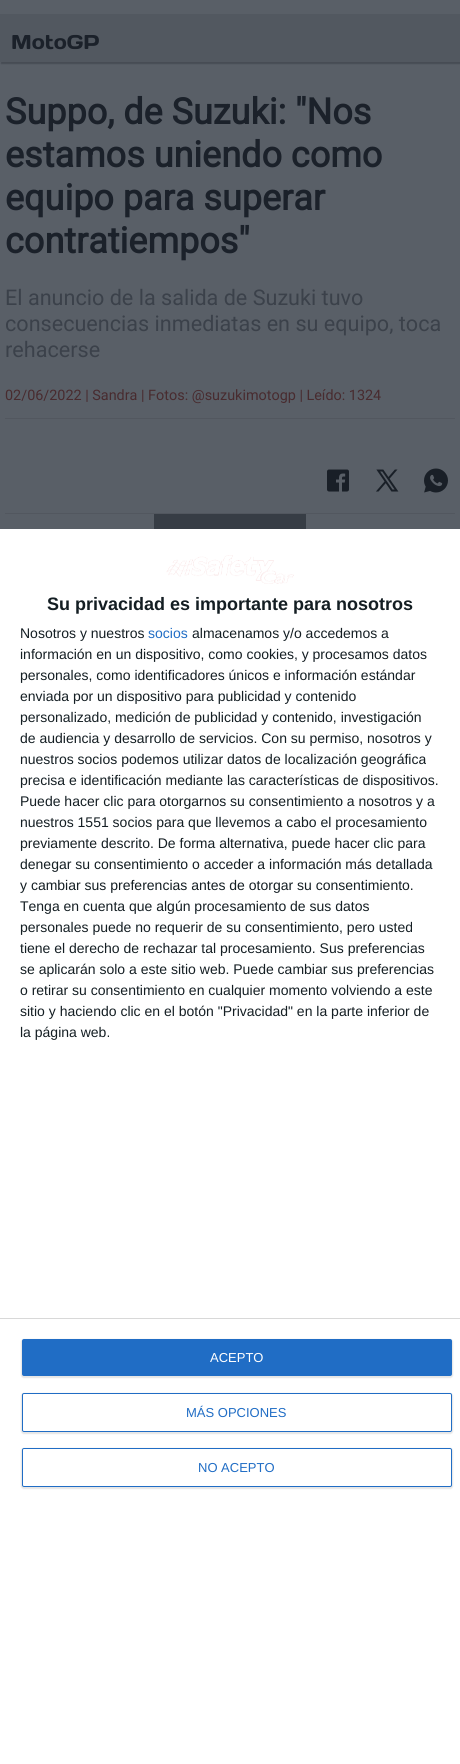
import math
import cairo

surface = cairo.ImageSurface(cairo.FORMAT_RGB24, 460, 1764)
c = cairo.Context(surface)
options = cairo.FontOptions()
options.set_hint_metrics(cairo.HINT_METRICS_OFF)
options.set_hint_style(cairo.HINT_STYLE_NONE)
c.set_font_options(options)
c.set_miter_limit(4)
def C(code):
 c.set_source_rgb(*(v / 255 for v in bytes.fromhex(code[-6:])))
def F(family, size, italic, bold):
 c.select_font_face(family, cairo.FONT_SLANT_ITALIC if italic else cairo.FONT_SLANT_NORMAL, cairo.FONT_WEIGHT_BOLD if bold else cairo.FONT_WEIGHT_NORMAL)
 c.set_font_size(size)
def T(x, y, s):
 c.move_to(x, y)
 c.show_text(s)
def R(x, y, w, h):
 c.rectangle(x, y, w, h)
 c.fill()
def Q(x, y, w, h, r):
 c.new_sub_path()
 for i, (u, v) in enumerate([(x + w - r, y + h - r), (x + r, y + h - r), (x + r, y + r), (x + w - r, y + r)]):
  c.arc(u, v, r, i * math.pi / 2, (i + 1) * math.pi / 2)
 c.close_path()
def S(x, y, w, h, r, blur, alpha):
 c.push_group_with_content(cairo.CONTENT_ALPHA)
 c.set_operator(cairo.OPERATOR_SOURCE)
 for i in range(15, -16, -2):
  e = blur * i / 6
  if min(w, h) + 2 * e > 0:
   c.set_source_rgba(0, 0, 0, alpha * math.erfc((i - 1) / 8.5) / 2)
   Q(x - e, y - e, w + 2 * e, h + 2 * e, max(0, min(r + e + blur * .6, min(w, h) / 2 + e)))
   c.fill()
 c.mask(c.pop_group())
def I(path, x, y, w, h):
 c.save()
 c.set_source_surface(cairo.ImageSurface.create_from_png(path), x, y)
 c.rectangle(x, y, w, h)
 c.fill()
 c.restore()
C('595f67')
c.paint()
C('474c54')
S(1,16,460,48,0,.5,1)
C('525860')
R(0,14,460,48)
F('Days One',20,0,0)
C('1b212a')
T(11,49,'MotoGP')
F('Roboto',36,0,1)
T(5,124,'Suppo, de Suzuki: "Nos')
T(5,167,'estamos uniendo como')
T(5,210,'equipo para superar')
T(5,253,'contratiempos"')
F('Roboto',21.6,0,0)
C('3b414a')
T(5,305,'El anuncio de la salida de Suzuki tuvo')
T(5,331,'consecuencias inmediatas en su equipo, toca')
T(5,357,'rehacerse')
F('Roboto',14.4,0,0)
C('482b2f')
T(5,400,'02/06/2022 | Sandra | Fotos: @suzukimotogp | Leído: 1324')
C('52575f')
R(5,418,450,1)
I('1.png',327,469,22,23)
I('2.png',376,469,23,23)
I('3.png',424,468,24,25)
R(5,513,450,1)
C('373d45')
R(154,514,152,15)
C('ffffff')
R(0,529,460,1235)
I('4.png',166,555,128,29)
F('Liberation Sans',18,0,1)
C('141e23')
T(47,610,'Su privacidad es importante para nosotros')
F('Liberation Sans',14,0,0)
T(20,638,'Nosotros y nuestros')
C('206dc5')
T(148,638,'socios')
C('141e23')
T(192,638,'almacenamos y/o accedemos a')
T(20,659,'información en un dispositivo, como cookies, y procesamos datos')
T(20,680,'personales, como identificadores únicos e información estándar')
T(20,701,'enviada por un dispositivo para publicidad y contenido')
T(20,722,'personalizado, medición de publicidad y contenido, investigación')
T(20,743,'de audiencia y desarrollo de servicios. Con su permiso, nosotros y')
T(20,764,'nuestros socios podemos utilizar datos de localización geográfica')
T(20,785,'precisa e identificación mediante las características de dispositivos.')
T(20,806,'Puede hacer clic para otorgarnos su consentimiento a nosotros y a')
T(20,827,'nuestros 1551 socios para que llevemos a cabo el procesamiento')
T(20,848,'previamente descrito. De forma alternativa, puede hacer clic para')
T(20,869,'denegar su consentimiento o acceder a información más detallada')
T(20,890,'y cambiar sus preferencias antes de otorgar su consentimiento.')
T(20,911,'Tenga en cuenta que algún procesamiento de sus datos')
T(20,932,'personales puede no requerir de su consentimiento, pero usted')
T(20,953,'tiene el derecho de rechazar tal procesamiento. Sus preferencias')
T(20,974,'se aplicarán solo a este sitio web. Puede cambiar sus preferencias')
T(20,995,'o retirar su consentimiento en cualquier momento volviendo a este')
T(20,1016,'sitio y haciendo clic en el botón "Privacidad" en la parte inferior de')
T(20,1037,'la página web.')
C('d8d8d8')
R(0,1318,460,1)
C('000000')
S(21,1339,432,39,3,.5,.1)
C('206dc5')
Q(22,1339,430,37,2)
c.fill()
F('Liberation Sans',13,0,0)
C('ffffff')
T(210,1362,'ACEPTO')
C('000000')
S(21,1393,432,41,3,.5,.1)
C('ffffff')
Q(22.5,1393.5,429,38,1.5)
c.fill_preserve()
C('206dc5')
c.set_line_width(1)
c.stroke()
T(186,1417,'MÁS OPCIONES')
C('000000')
S(21,1448,432,41,3,.5,.1)
C('ffffff')
Q(22.5,1448.5,429,38,1.5)
c.fill_preserve()
C('206dc5')
c.stroke()
T(198,1472,'NO ACEPTO')
surface.write_to_png('o.png')
